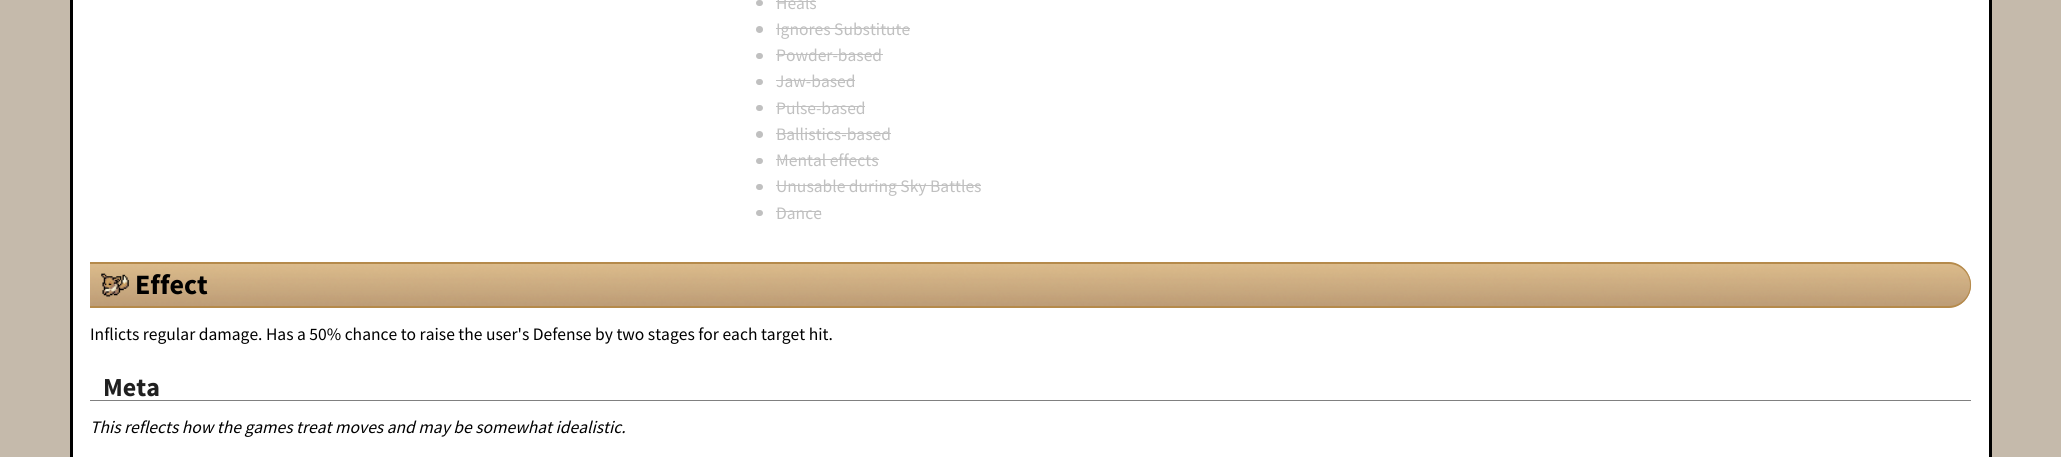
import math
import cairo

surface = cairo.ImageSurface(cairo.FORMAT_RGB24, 2061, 457)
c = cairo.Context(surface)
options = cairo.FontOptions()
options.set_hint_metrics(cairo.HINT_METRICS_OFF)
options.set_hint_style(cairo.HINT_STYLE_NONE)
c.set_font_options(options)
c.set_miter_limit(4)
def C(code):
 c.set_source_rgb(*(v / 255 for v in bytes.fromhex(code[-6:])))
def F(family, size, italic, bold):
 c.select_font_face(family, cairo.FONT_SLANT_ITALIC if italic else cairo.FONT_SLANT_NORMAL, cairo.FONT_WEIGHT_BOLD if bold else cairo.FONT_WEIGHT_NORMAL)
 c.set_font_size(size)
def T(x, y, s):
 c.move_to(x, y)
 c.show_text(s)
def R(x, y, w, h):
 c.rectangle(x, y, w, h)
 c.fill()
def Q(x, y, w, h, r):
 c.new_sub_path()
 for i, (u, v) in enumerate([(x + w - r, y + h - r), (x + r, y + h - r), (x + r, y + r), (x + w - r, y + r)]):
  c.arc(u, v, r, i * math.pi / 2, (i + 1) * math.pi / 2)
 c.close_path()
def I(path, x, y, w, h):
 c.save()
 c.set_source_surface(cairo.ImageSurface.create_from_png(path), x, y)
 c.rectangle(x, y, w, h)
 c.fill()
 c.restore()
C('c5baab')
c.paint()
C('ffffff')
R(73,0,1916,457)
C('000000')
R(1989,0,3,457)
R(70,0,3,457)
C('c0c0c0')
Q(756,0,7,6,3)
c.fill()
F('Source Sans Pro',17.5,0,0)
T(776,9,'Heals')
R(776,1,40,1)
c.new_path()
c.arc(759.5,29.5,3.5,0,2 * math.pi)
c.fill()
T(776,35,'Ignores Substitute')
R(776,28,134,1)
Q(756,53,7,6,3)
c.fill()
T(776,61,'Powder-based')
R(776,54,107,1)
Q(756,79,7,6,3)
c.fill()
T(776,87,'Jaw-based')
R(776,80,79,1)
Q(756,105,7,6,3)
c.fill()
T(776,114,'Pulse-based')
R(776,106,89,1)
c.new_path()
c.arc(759.5,134.5,3.5,0,2 * math.pi)
c.fill()
T(776,140,'Ballistics-based')
R(776,133,115,1)
Q(756,158,7,6,3)
c.fill()
T(776,166,'Mental effects')
R(776,159,103,1)
Q(756,184,7,6,3)
c.fill()
T(776,192,'Unusable during Sky Battles')
R(776,185,205,1)
Q(756,210,7,6,3)
c.fill()
T(776,219,'Dance')
R(776,211,45,1)
I('1.png',90,262,1882,46)
C('b58a4b')
c.set_fill_rule(cairo.FILL_RULE_EVEN_ODD)
c.new_path()
c.move_to(90,262)
c.line_to(1949,262)
c.curve_to(1961,262,1971,273,1971,285)
c.curve_to(1971,297,1961,308,1949,308)
c.line_to(90,308)
c.close_path()
c.move_to(90,264)
c.line_to(1949,264)
c.curve_to(1960,264,1970,273,1970,285)
c.curve_to(1970,297,1960,306,1949,306)
c.line_to(90,306)
c.close_path()
c.fill()
F('Source Sans Pro',28,0,1)
C('000000')
T(135,294,'Effect')
F('Source Sans Pro',17.5,0,0)
T(90,340,'Inflicts regular damage. Has a 50% chance to raise the user\'s Defense by two stages for each target hit.')
C('808080')
R(90,400,1881,1)
F('Source Sans Pro',26,0,1)
C('202020')
T(103,396,'Meta')
F('Source Sans Pro',17.5,1,0)
C('000000')
T(90,433,'This reflects how the games treat moves and may be somewhat idealistic.')
surface.write_to_png('o.png')
